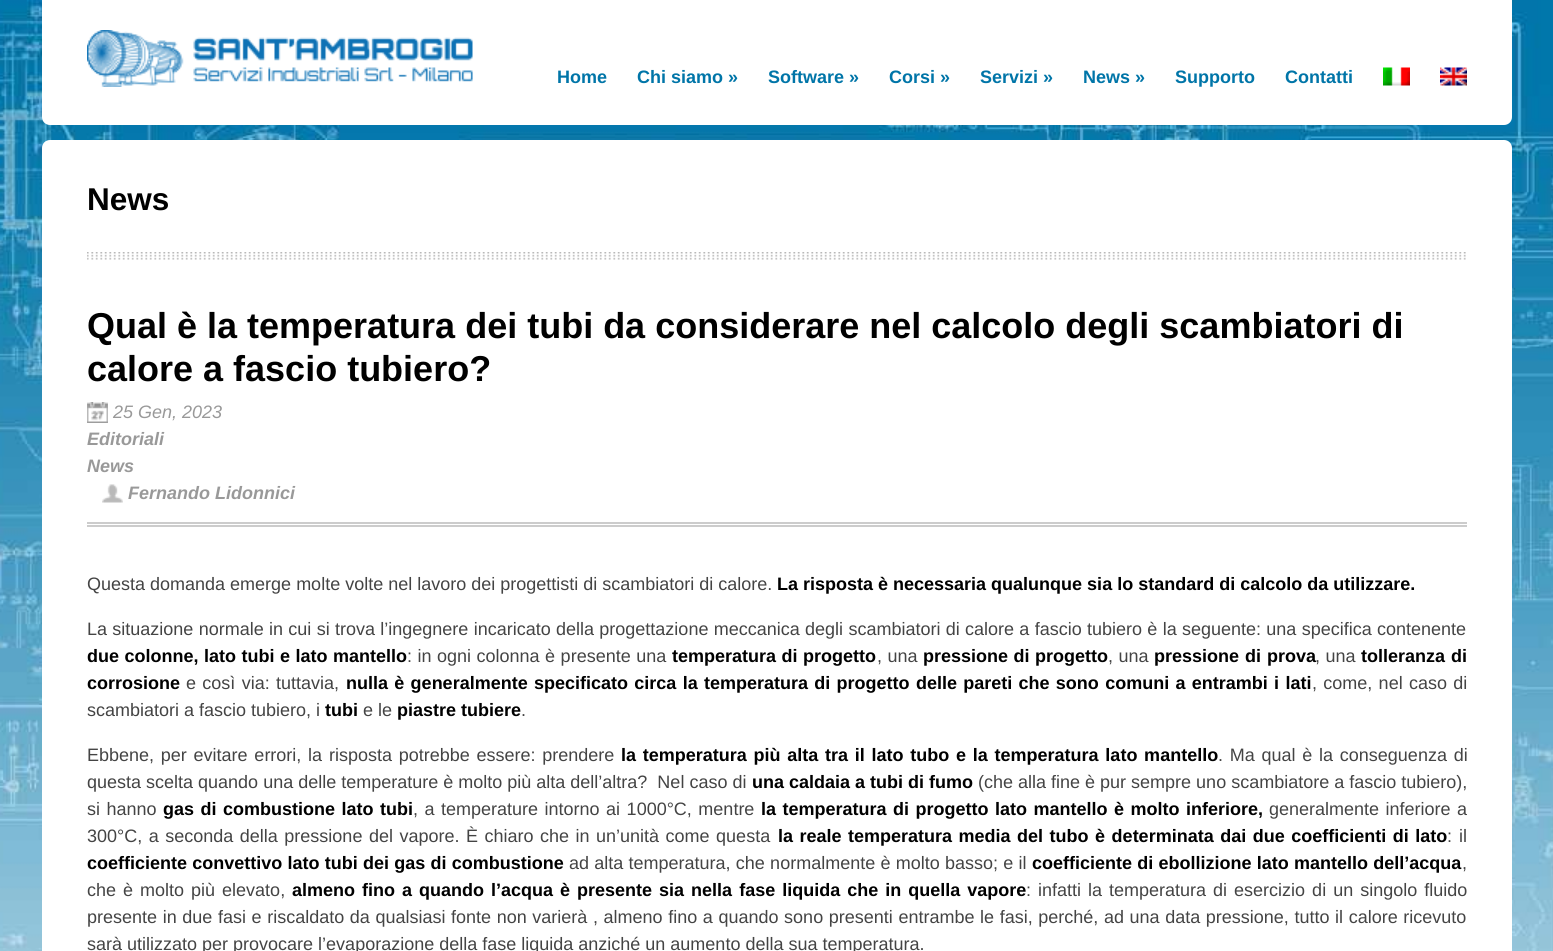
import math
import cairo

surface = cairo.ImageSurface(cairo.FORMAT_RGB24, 1553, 951)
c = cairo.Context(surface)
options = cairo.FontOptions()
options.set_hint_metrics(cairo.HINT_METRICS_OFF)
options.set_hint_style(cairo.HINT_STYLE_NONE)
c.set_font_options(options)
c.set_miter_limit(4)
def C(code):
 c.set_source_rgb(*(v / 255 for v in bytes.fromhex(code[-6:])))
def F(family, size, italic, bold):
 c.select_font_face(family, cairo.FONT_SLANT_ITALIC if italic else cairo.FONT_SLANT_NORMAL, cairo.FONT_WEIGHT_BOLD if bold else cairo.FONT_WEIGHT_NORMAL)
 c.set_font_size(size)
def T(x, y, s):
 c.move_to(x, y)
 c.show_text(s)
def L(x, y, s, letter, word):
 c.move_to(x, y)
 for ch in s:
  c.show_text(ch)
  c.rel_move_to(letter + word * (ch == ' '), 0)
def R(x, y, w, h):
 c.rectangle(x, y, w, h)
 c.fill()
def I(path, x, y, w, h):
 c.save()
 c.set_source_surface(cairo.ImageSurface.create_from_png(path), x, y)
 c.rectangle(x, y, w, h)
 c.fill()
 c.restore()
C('ffffff')
c.paint()
I('1.png',0,0,1553,951)
C('ffffff')
c.new_path()
c.move_to(42,0)
c.line_to(1512,0)
c.line_to(1512,117)
c.curve_to(1512,121.5,1508.5,125,1504,125)
c.line_to(50,125)
c.curve_to(45.5,125,42,121.5,42,117)
c.close_path()
c.fill()
I('2.png',87,30,386,57)
F('Liberation Sans',18,0,1)
C('0075a8')
T(557,83,'Home')
T(637,83,'Chi siamo »')
T(768,83,'Software »')
T(889,83,'Corsi »')
T(980,83,'Servizi »')
T(1083,83,'News »')
T(1175,83,'Supporto')
T(1285,83,'Contatti')
I('3.png',1383,67,27,19)
I('4.png',1440,67,27,19)
C('ffffff')
c.new_path()
c.move_to(50,140)
c.line_to(1504,140)
c.curve_to(1508.5,140,1512,143.5,1512,148)
c.line_to(1512,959)
c.line_to(42,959)
c.line_to(42,148)
c.curve_to(42,143.5,45.5,140,50,140)
c.close_path()
c.fill()
I('5.png',87,252,1379,8)
F('Liberation Sans',31.5,0,1)
C('000000')
T(87,210,'News')
F('Liberation Sans',36,0,1)
T(87,338,'Qual è la temperatura dei tubi da considerare nel calcolo degli scambiatori di')
T(87,381,'calore a fascio tubiero?')
C('cccccc')
R(87,522,1380,2)
R(87,525,1380,2)
I('6.png',87,402,21,21)
F('Liberation Sans',18,1,0)
C('999999')
T(113,418,'25 Gen, 2023')
F('Liberation Sans',18,1,1)
T(87,445,'Editoriali')
T(87,472,'News')
I('7.png',102,484,21,19)
T(128,499,'Fernando Lidonnici')
F('Liberation Sans',18,0,0)
C('444444')
T(87,590,'Questa domanda emerge molte volte nel lavoro dei progettisti di scambiatori di calore.')
F('Liberation Sans',18,0,1)
C('000000')
T(777,590,'La risposta è necessaria qualunque sia lo standard di calcolo da utilizzare.')
F('Liberation Sans',18,0,0)
C('444444')
L(87,635,'La situazione normale in cui si trova l’ingegnere incaricato della progettazione meccanica degli scambiatori di calore a fascio tubiero è la seguente: una specifica contenente',0,.3)
F('Liberation Sans',18,0,1)
C('000000')
L(87,662,'due colonne, lato tubi e lato mantello',0,.5)
F('Liberation Sans',18,0,0)
C('444444')
L(407,662,': in ogni colonna è presente una',0,.5)
F('Liberation Sans',18,0,1)
C('000000')
L(672,662,'temperatura di progetto',0,.5)
F('Liberation Sans',18,0,0)
C('444444')
L(877,662,', una',0,.5)
F('Liberation Sans',18,0,1)
C('000000')
L(923,662,'pressione di progetto',0,.5)
F('Liberation Sans',18,0,0)
C('444444')
L(1108,662,', una',0,.5)
F('Liberation Sans',18,0,1)
C('000000')
L(1154,662,'pressione di prova',0,1)
F('Liberation Sans',18,0,0)
C('444444')
L(1315,662,', una',0,.5)
F('Liberation Sans',18,0,1)
C('000000')
L(1361,662,'tolleranza di',0,1)
T(87,689,'corrosione')
F('Liberation Sans',18,0,0)
C('444444')
L(186,689,'e così via: tuttavia,',0,1.3)
F('Liberation Sans',18,0,1)
C('000000')
L(346,689,'nulla è generalmente specificato circa la temperatura di progetto delle pareti che sono comuni a entrambi i lati',0,1.3)
F('Liberation Sans',18,0,0)
C('444444')
L(1312,689,', come, nel caso di',0,1.3)
T(87,716,'scambiatori a fascio tubiero, i')
F('Liberation Sans',18,0,1)
C('000000')
T(325,716,'tubi')
F('Liberation Sans',18,0,0)
C('444444')
T(363,716,'e le')
F('Liberation Sans',18,0,1)
C('000000')
T(397,716,'piastre tubiere')
F('Liberation Sans',18,0,0)
C('444444')
T(521,716,'.')
L(87,761,'Ebbene, per evitare errori, la risposta potrebbe essere: prendere',0,1.75)
F('Liberation Sans',18,0,1)
C('000000')
L(621,761,'la temperatura più alta tra il lato tubo e la temperatura lato mantello',0,1.75)
F('Liberation Sans',18,0,0)
C('444444')
L(1218,761,'. Ma qual è la conseguenza di',0,1.75)
T(87,788,'questa scelta quando una delle temperature è molto più alta dell’altra?  Nel caso di')
F('Liberation Sans',18,0,1)
C('000000')
T(752,788,'una caldaia a tubi di fumo')
F('Liberation Sans',18,0,0)
C('444444')
T(978,788,'(che alla fine è pur sempre uno scambiatore a fascio tubiero),')
L(87,815,'si hanno',0,1.5)
F('Liberation Sans',18,0,1)
C('000000')
L(163,815,'gas di combustione lato tubi',0,1.5)
F('Liberation Sans',18,0,0)
C('444444')
L(413,815,', a temperature intorno ai 1000°C, mentre',0,1.5)
F('Liberation Sans',18,0,1)
C('000000')
L(761,815,'la temperatura di progetto lato mantello è molto inferiore,',0,1.5)
F('Liberation Sans',18,0,0)
C('444444')
L(1269,815,'generalmente inferiore a',0,1.5)
L(87,842,'300°C, a seconda della pressione del vapore. È chiaro che in un’unità come questa',0,1.5)
F('Liberation Sans',18,0,1)
C('000000')
L(778,842,'la reale temperatura media del tubo è determinata dai due coefficienti di lato',0,1.5)
F('Liberation Sans',18,0,0)
C('444444')
L(1447,842,': il',0,2)
F('Liberation Sans',18,0,1)
C('000000')
L(87,869,'coefficiente convettivo lato tubi dei gas di combustione',0,.25)
F('Liberation Sans',18,0,0)
C('444444')
L(569,869,'ad alta temperatura, che normalmente è molto basso; e il',0,.25)
F('Liberation Sans',18,0,1)
C('000000')
L(1032,869,'coefficiente di ebollizione lato mantello dell’acqua',0,.25)
F('Liberation Sans',18,0,0)
C('444444')
T(1462,869,',')
L(87,896,'che è molto più elevato,',0,2)
F('Liberation Sans',18,0,1)
C('000000')
L(292,896,'almeno fino a quando l’acqua è presente sia nella fase liquida che in quella vapore',0,2)
F('Liberation Sans',18,0,0)
C('444444')
L(1026,896,': infatti la temperatura di esercizio di un singolo fluido',0,2)
L(87,923,'presente in due fasi e riscaldato da qualsiasi fonte non varierà , almeno fino a quando sono presenti entrambe le fasi, perché, ad una data pressione, tutto il calore ricevuto',0,.6)
T(87,950,'sarà utilizzato per provocare l’evaporazione della fase liquida anziché un aumento della sua temperatura.')
surface.write_to_png('o.png')
